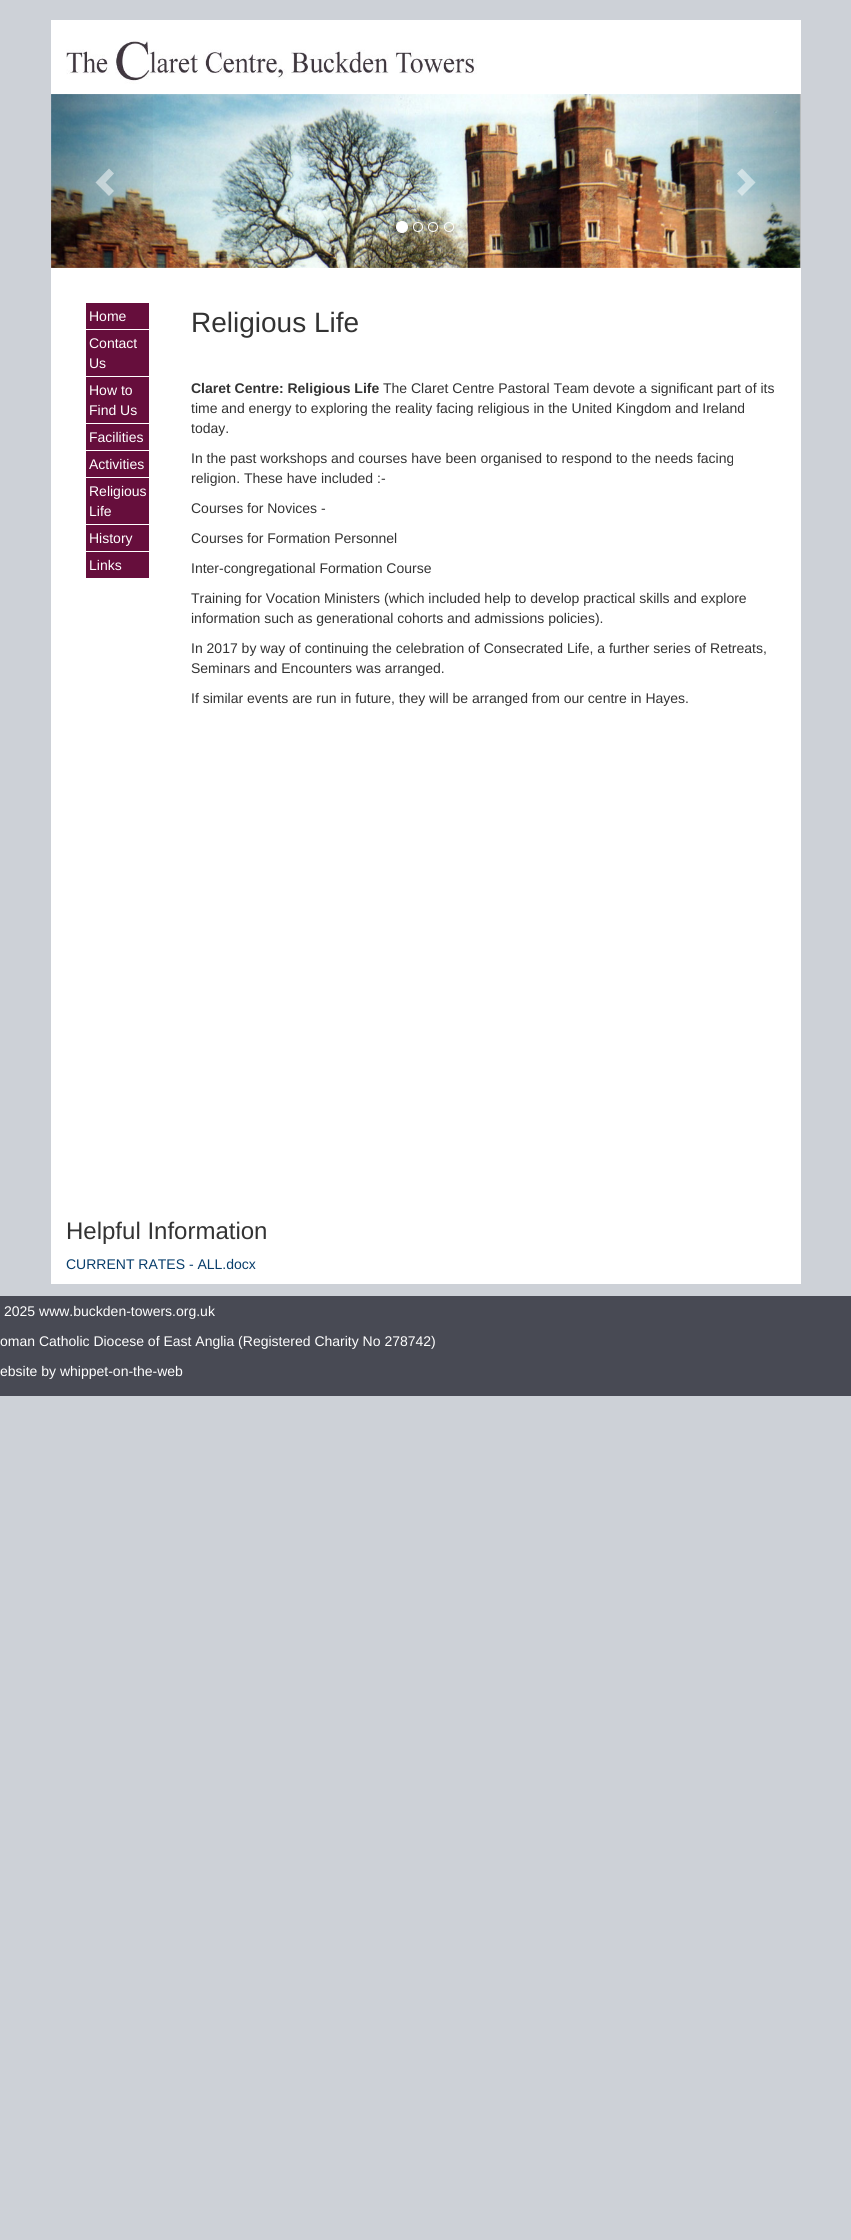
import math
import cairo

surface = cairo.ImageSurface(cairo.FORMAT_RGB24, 851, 2240)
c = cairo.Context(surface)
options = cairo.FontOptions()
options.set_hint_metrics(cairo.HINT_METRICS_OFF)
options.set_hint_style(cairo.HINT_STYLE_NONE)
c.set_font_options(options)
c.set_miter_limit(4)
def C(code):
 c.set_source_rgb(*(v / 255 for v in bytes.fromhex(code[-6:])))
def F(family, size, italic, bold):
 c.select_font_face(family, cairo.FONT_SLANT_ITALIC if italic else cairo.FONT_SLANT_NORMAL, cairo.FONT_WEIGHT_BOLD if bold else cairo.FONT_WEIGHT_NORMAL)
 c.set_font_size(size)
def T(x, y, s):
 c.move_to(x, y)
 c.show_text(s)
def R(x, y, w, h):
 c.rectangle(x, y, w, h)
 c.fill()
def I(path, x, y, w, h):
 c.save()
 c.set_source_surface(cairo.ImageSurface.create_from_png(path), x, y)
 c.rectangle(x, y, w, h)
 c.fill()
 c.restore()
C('cdd1d7')
c.paint()
C('ffffff')
R(51,20,750,1264)
I('1.png',66,40,411,44)
I('2.png',51,94,750,174)
gradient = cairo.LinearGradient(51,181,163,181)
gradient.add_color_stop_rgba(0,0,0,0,.25)
gradient.add_color_stop_rgba(1,0,0,0,0)
c.set_source(gradient)
R(51,94,102,174)
c.set_source_rgba(1,1,1,0.5)
c.new_path()
c.move_to(114,173.5)
c.line_to(105.5,182.5)
c.line_to(114,191)
c.line_to(109,196)
c.line_to(95.5,182.5)
c.line_to(109,168.5)
c.close_path()
c.fill()
C('ffffff')
c.arc(402,227,5.5,0,2 * math.pi)
c.fill_preserve()
c.set_line_width(1)
c.stroke()
c.arc(418,227,4.5,0,2 * math.pi)
c.stroke()
c.arc(433,227,4.5,0,2 * math.pi)
c.stroke()
c.arc(449,227,4.5,0,2 * math.pi)
c.stroke()
gradient = cairo.LinearGradient(688,181,801,181)
gradient.add_color_stop_rgba(0,0,0,0,0)
gradient.add_color_stop_rgba(1,0,0,0,.25)
c.set_source(gradient)
R(698,94,103,174)
c.set_source_rgba(1,1,1,0.5)
c.new_path()
c.move_to(755.5,182.5)
c.line_to(742,196)
c.line_to(737,191)
c.line_to(745.5,182.5)
c.line_to(737,173.5)
c.line_to(742,168.5)
c.close_path()
c.fill()
C('660e3c')
R(86,303,63,26)
F('Liberation Sans',14,0,0)
C('ffffff')
T(89,321,'Home')
C('660e3c')
R(86,330,63,46)
C('ffffff')
T(89,348,'Contact')
T(89,368,'Us')
C('660e3c')
R(86,377,63,46)
C('ffffff')
T(89,395,'How to')
T(89,415,'Find Us')
C('660e3c')
R(86,424,63,26)
C('ffffff')
T(89,442,'Facilities')
C('660e3c')
R(86,451,63,26)
C('ffffff')
T(89,469,'Activities')
C('660e3c')
R(86,478,63,46)
C('ffffff')
T(89,496,'Religious')
T(89,516,'Life')
C('660e3c')
R(86,525,63,26)
C('ffffff')
T(89,543,'History')
C('660e3c')
R(86,552,63,26)
C('ffffff')
T(89,570,'Links')
F('Liberation Sans',28,0,0)
C('333333')
T(191,332,'Religious Life')
F('Liberation Sans',14,0,1)
T(191,393,'Claret Centre: Religious Life')
F('Liberation Sans',14,0,0)
T(383,393,'The Claret Centre Pastoral Team devote a significant part of its')
T(191,413,'time and energy to exploring the reality facing religious in the United Kingdom and Ireland')
T(191,433,'today.')
T(191,463,'In the past workshops and courses have been organised to respond to the needs facing')
T(191,483,'religion. These have included :-')
T(191,513,'Courses for Novices -')
T(191,543,'Courses for Formation Personnel')
T(191,573,'Inter-congregational Formation Course')
T(191,603,'Training for Vocation Ministers (which included help to develop practical skills and explore')
T(191,623,'information such as generational cohorts and admissions policies).')
T(191,653,'In 2017 by way of continuing the celebration of Consecrated Life, a further series of Retreats,')
T(191,673,'Seminars and Encounters was arranged.')
T(191,703,'If similar events are run in future, they will be arranged from our centre in Hayes.')
F('Liberation Sans',24,0,0)
T(66,1239,'Helpful Information')
F('Liberation Sans',14,0,0)
C('073d6b')
T(66,1269,'CURRENT RATES - ALL.docx')
C('484a54')
R(0,1296,851,100)
C('ffffff')
T(4,1316,'2025 www.buckden-towers.org.uk')
T(0,1346,'oman Catholic Diocese of East Anglia (Registered Charity No 278742)')
T(0,1376,'ebsite by whippet-on-the-web')
surface.write_to_png('o.png')
